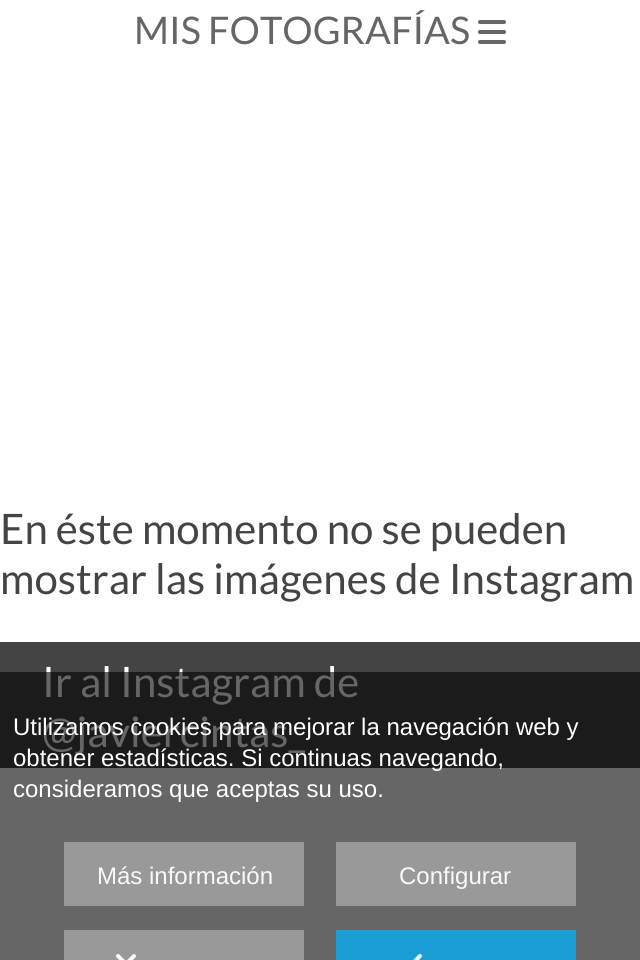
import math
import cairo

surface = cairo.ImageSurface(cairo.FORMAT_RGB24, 640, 960)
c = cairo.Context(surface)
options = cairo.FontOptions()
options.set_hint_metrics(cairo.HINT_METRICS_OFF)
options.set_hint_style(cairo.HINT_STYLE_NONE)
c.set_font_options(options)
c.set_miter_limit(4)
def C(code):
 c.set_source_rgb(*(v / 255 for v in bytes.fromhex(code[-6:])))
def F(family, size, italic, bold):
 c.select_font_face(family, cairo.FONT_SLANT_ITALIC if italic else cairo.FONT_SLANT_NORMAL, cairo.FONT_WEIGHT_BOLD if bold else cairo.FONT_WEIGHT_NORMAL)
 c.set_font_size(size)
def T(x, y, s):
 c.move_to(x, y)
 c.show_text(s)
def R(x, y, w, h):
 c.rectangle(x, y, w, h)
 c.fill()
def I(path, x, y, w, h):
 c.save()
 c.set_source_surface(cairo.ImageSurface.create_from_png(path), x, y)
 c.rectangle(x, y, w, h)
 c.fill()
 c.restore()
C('ffffff')
c.paint()
F('Lato',38,0,0)
C('666666')
T(134,44,'MIS FOTOGRAFÍAS')
I('1.png',478,20,28,24)
F('Lato',42,0,0)
C('444444')
T(0,544,'En éste momento no se pueden')
T(0,594,'mostrar las imágenes de Instagram')
R(0,642,640,126)
C('ffffff')
T(42,697,'Ir al Instagram de')
T(42,747,'@javiercintas_')
c.set_source_rgba(0,0,0,0.6)
R(0,672,640,288)
F('Liberation Sans',24,0,0)
C('ffffff')
T(13,735,'Utilizamos cookies para mejorar la navegación web y')
T(13,766,'obtener estadísticas. Si continuas navegando,')
T(13,797,'consideramos que aceptas su uso.')
C('999999')
R(64,842,240,64)
C('f9f9f9')
T(97,884,'Más información')
C('999999')
R(336,842,240,64)
C('f9f9f9')
T(399,884,'Configurar')
C('999999')
R(64,930,240,30)
I('2.png',116,954,20,6)
C('1a9ed5')
R(336,930,240,30)
I('3.png',413,954,9,6)
surface.write_to_png('o.png')
